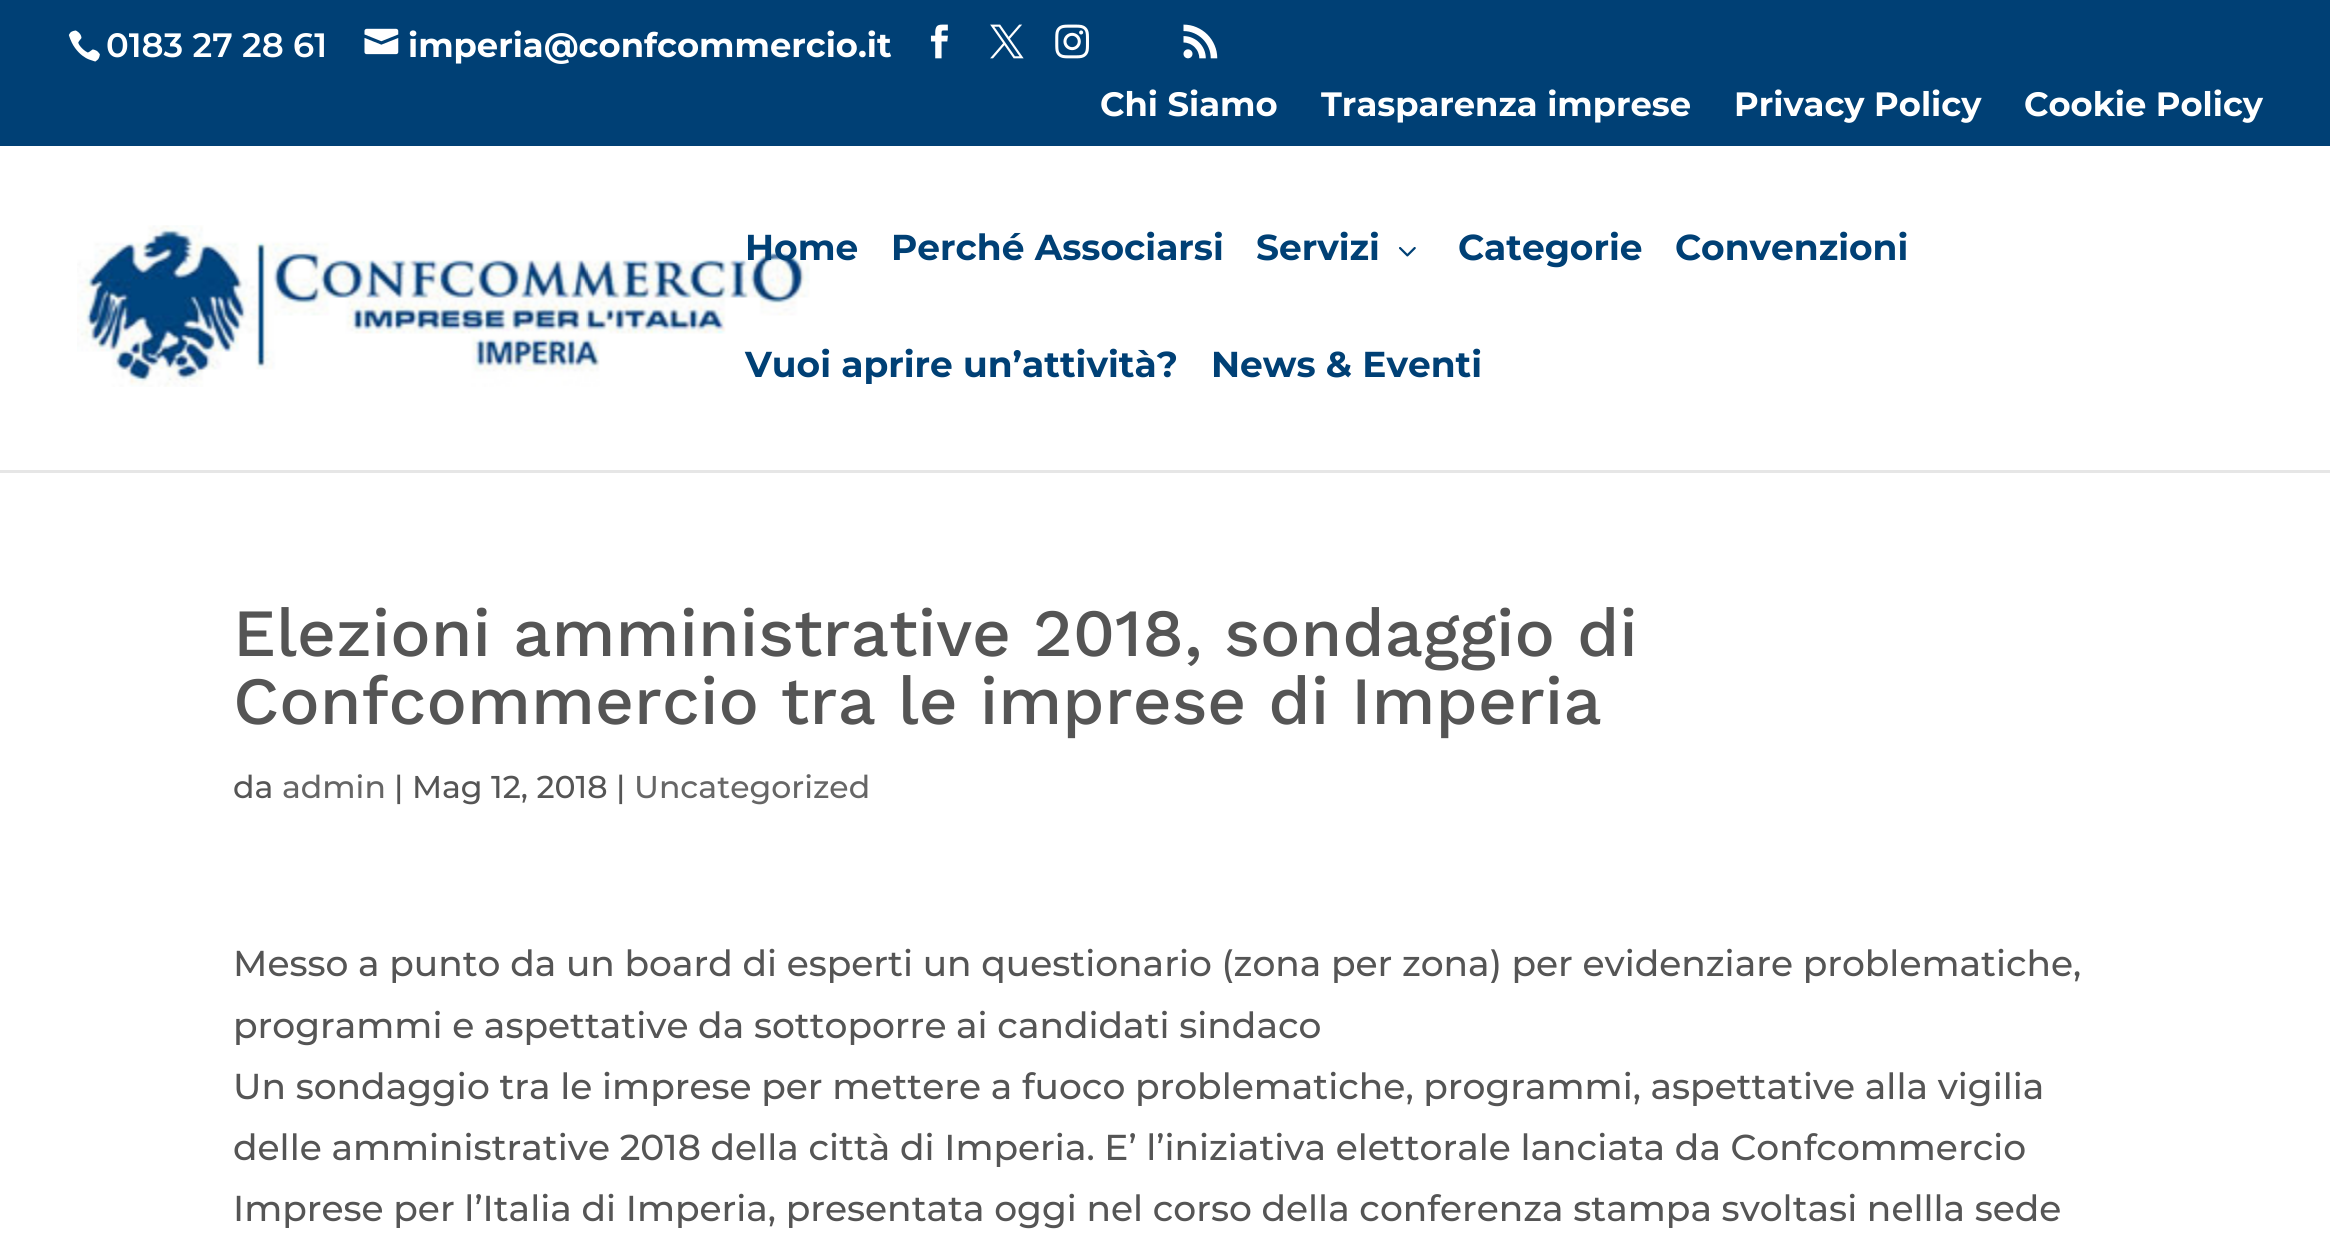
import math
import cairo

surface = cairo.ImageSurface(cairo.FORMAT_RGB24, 2330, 1237)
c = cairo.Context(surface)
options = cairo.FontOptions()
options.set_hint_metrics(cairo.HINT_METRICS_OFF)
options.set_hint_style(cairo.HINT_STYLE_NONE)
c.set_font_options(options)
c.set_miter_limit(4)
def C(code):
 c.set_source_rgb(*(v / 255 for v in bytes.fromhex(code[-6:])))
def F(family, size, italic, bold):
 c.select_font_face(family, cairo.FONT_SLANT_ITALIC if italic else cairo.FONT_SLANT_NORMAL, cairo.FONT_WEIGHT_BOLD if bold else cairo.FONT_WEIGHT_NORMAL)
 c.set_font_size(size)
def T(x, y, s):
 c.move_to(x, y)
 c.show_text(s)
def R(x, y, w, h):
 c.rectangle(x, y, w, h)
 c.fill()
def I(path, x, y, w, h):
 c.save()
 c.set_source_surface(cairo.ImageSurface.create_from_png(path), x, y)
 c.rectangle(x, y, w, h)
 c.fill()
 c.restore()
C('ffffff')
c.paint()
C('004075')
R(0,0,2330,146)
I('1.png',68,30,32,32)
F('Montserrat SemiBold',33.75,0,0)
C('ffffff')
T(106,57,'0183 27 28 61')
I('2.png',364,28,35,27)
F('Montserrat',33.75,0,1)
T(408,57,'imperia@confcommercio.it')
I('3.png',930,24,18,35)
I('4.png',990,24,34,35)
I('5.png',1055,24,34,35)
I('6.png',1183,24,35,35)
T(1100,116,'Chi Siamo')
T(1321,116,'Trasparenza imprese')
T(1734,116,'Privacy Policy')
T(2024,116,'Cookie Policy')
C('e6e6e6')
R(0,470,2330,3)
I('7.png',77,225,733,162)
F('Montserrat',36,0,1)
C('004075')
T(745,260,'Home')
T(891,260,'Perché Associarsi')
T(1256,260,'Servizi')
I('8.png',1399,247,17,10)
T(1458,260,'Categorie')
T(1675,260,'Convenzioni')
T(745,377,'Vuoi aprire un’attività?')
T(1211,377,'News & Eventi')
F('Work Sans Medium',67.5,0,0)
C('555555')
T(233,656,'Elezioni amministrative 2018, sondaggio di')
T(233,724,'Confcommercio tra le imprese di Imperia')
F('Montserrat Medium',31.5,0,0)
T(233,798,'da')
C('666666')
T(282,798,'admin')
C('555555')
T(394,798,'| Mag 12, 2018 |')
C('666666')
T(634,798,'Uncategorized')
F('Montserrat Medium',36,0,0)
C('555555')
T(233,976,'Messo a punto da un board di esperti un questionario (zona per zona) per evidenziare problematiche,')
T(233,1038,'programmi e aspettative da sottoporre ai candidati sindaco')
T(233,1099,'Un sondaggio tra le imprese per mettere a fuoco problematiche, programmi, aspettative alla vigilia')
T(233,1160,'delle amministrative 2018 della città di Imperia. E’ l’iniziativa elettorale lanciata da Confcommercio')
T(233,1221,'Imprese per l’Italia di Imperia, presentata oggi nel corso della conferenza stampa svoltasi nellla sede')
surface.write_to_png('o.png')
